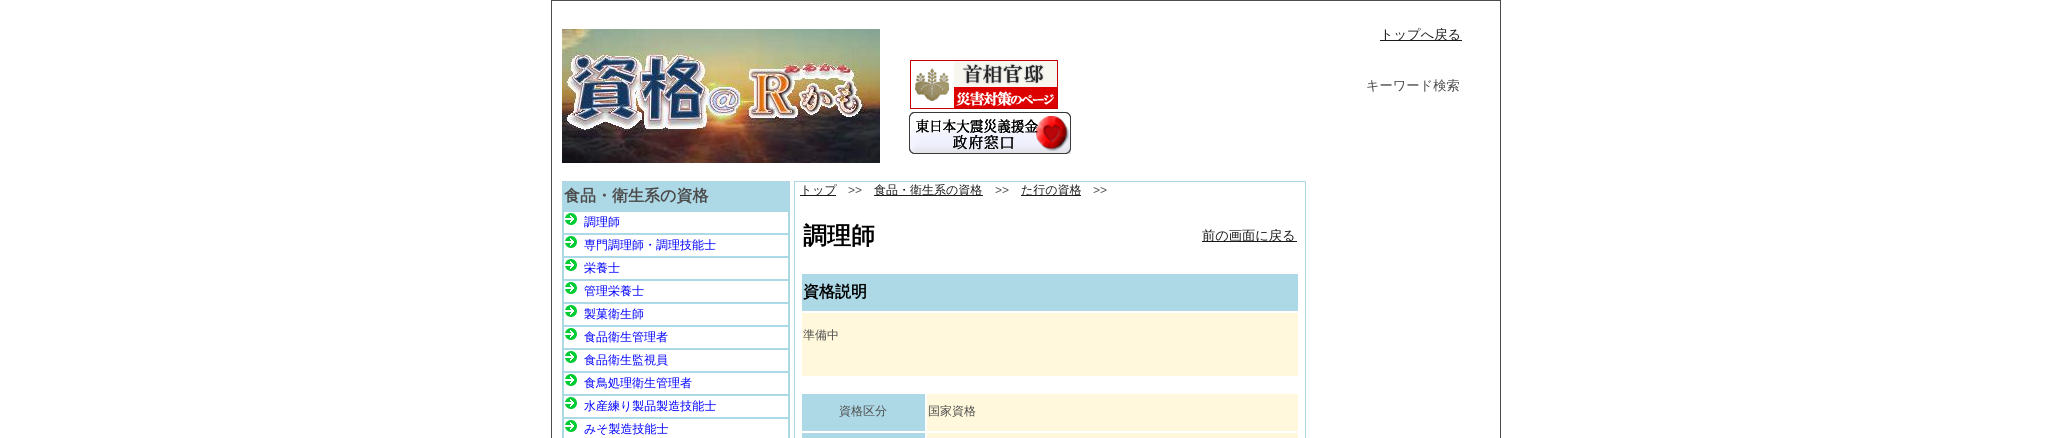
import math
import cairo

surface = cairo.ImageSurface(cairo.FORMAT_RGB24, 2051, 438)
c = cairo.Context(surface)
options = cairo.FontOptions()
options.set_hint_metrics(cairo.HINT_METRICS_OFF)
options.set_hint_style(cairo.HINT_STYLE_NONE)
c.set_font_options(options)
c.set_miter_limit(4)
def C(code):
 c.set_source_rgb(*(v / 255 for v in bytes.fromhex(code[-6:])))
def F(family, size, italic, bold):
 c.select_font_face(family, cairo.FONT_SLANT_ITALIC if italic else cairo.FONT_SLANT_NORMAL, cairo.FONT_WEIGHT_BOLD if bold else cairo.FONT_WEIGHT_NORMAL)
 c.set_font_size(size)
def T(x, y, s):
 c.move_to(x, y)
 c.show_text(s)
def R(x, y, w, h):
 c.rectangle(x, y, w, h)
 c.fill()
def I(path, x, y, w, h):
 c.save()
 c.set_source_surface(cairo.ImageSurface.create_from_png(path), x, y)
 c.rectangle(x, y, w, h)
 c.fill()
 c.restore()
C('ffffff')
c.paint()
c.rectangle(551.5,.5,949,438)
C('4c4c4c')
c.set_line_width(1)
c.stroke()
I('1.png',562,29,318,134)
I('2.png',910,60,148,49)
I('3.png',909,112,162,42)
C('1a1a1a')
R(1380,40,82,1)
F('WenQuanYi Zen Hei Medium',13.25,0,0)
T(1380,39,'トップへ戻る')
C('4c4c4c')
T(1366,90,'キーワード検索')
c.rectangle(562.5,181.5,227,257)
C('add8e6')
c.stroke()
R(563,182,226,29)
F('WenQuanYi Zen Hei',16,0,1)
C('4c4c4c')
T(564,201,'食品・衛生系の資格')
I('4.png',565,213,12,12)
c.rectangle(563.5,211.5,225,22)
C('add8e6')
c.stroke()
F('WenQuanYi Zen Hei Medium',12,0,0)
C('0000ff')
T(584,226,'調理師')
I('4.png',565,236,12,12)
c.rectangle(563.5,234.5,225,22)
C('add8e6')
c.stroke()
C('0000ff')
T(584,249,'専門調理師・調理技能士')
I('4.png',565,259,12,12)
c.rectangle(563.5,257.5,225,22)
C('add8e6')
c.stroke()
C('0000ff')
T(584,272,'栄養士')
I('4.png',565,282,12,12)
c.rectangle(563.5,280.5,225,22)
C('add8e6')
c.stroke()
C('0000ff')
T(584,295,'管理栄養士')
I('4.png',565,305,12,12)
c.rectangle(563.5,303.5,225,22)
C('add8e6')
c.stroke()
C('0000ff')
T(584,318,'製菓衛生師')
I('4.png',565,328,12,12)
c.rectangle(563.5,326.5,225,22)
C('add8e6')
c.stroke()
C('0000ff')
T(584,341,'食品衛生管理者')
I('4.png',565,351,12,12)
c.rectangle(563.5,349.5,225,22)
C('add8e6')
c.stroke()
C('0000ff')
T(584,364,'食品衛生監視員')
I('4.png',565,374,12,12)
c.rectangle(563.5,372.5,225,22)
C('add8e6')
c.stroke()
C('0000ff')
T(584,387,'食鳥処理衛生管理者')
I('4.png',565,397,12,12)
c.rectangle(563.5,395.5,225,22)
C('add8e6')
c.stroke()
C('0000ff')
T(584,410,'水産練り製品製造技能士')
I('4.png',565,420,12,12)
c.rectangle(563.5,418.5,225,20)
C('add8e6')
c.stroke()
C('0000ff')
T(584,433,'みそ製造技能士')
c.rectangle(794.5,181.5,511,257)
C('add8e6')
c.stroke()
C('1a1a1a')
R(800,195,36,1)
T(800,194,'トップ')
F('Liberation Sans',12,0,0)
C('4c4c4c')
T(848,194,'>>')
C('1a1a1a')
R(874,195,109,1)
F('WenQuanYi Zen Hei Medium',12,0,0)
T(874,194,'食品・衛生系の資格')
F('Liberation Sans',12,0,0)
C('4c4c4c')
T(995,194,'>>')
C('1a1a1a')
R(1021,195,60,1)
F('WenQuanYi Zen Hei Medium',12,0,0)
T(1021,194,'た行の資格')
F('Liberation Sans',12,0,0)
C('4c4c4c')
T(1093,194,'>>')
F('WenQuanYi Zen Hei',24,0,1)
C('000000')
T(803,244,'調理師')
C('1a1a1a')
R(1202,241,95,1)
F('WenQuanYi Zen Hei Medium',13.25,0,0)
T(1202,240,'前の画面に戻る')
C('add8e6')
R(802,274,496,37)
F('WenQuanYi Zen Hei',16,0,1)
C('000000')
T(803,297,'資格説明')
C('fff8dc')
R(802,313,496,63)
F('WenQuanYi Zen Hei Medium',12,0,0)
C('4c4c4c')
T(803,339,'準備中')
C('add8e6')
R(802,394,123,37)
C('4c4c4c')
T(839,415,'資格区分')
C('fff8dc')
R(927,394,371,37)
C('4c4c4c')
T(928,415,'国家資格')
C('add8e6')
R(802,433,123,5)
C('fff8dc')
R(927,433,371,5)
surface.write_to_png('o.png')
